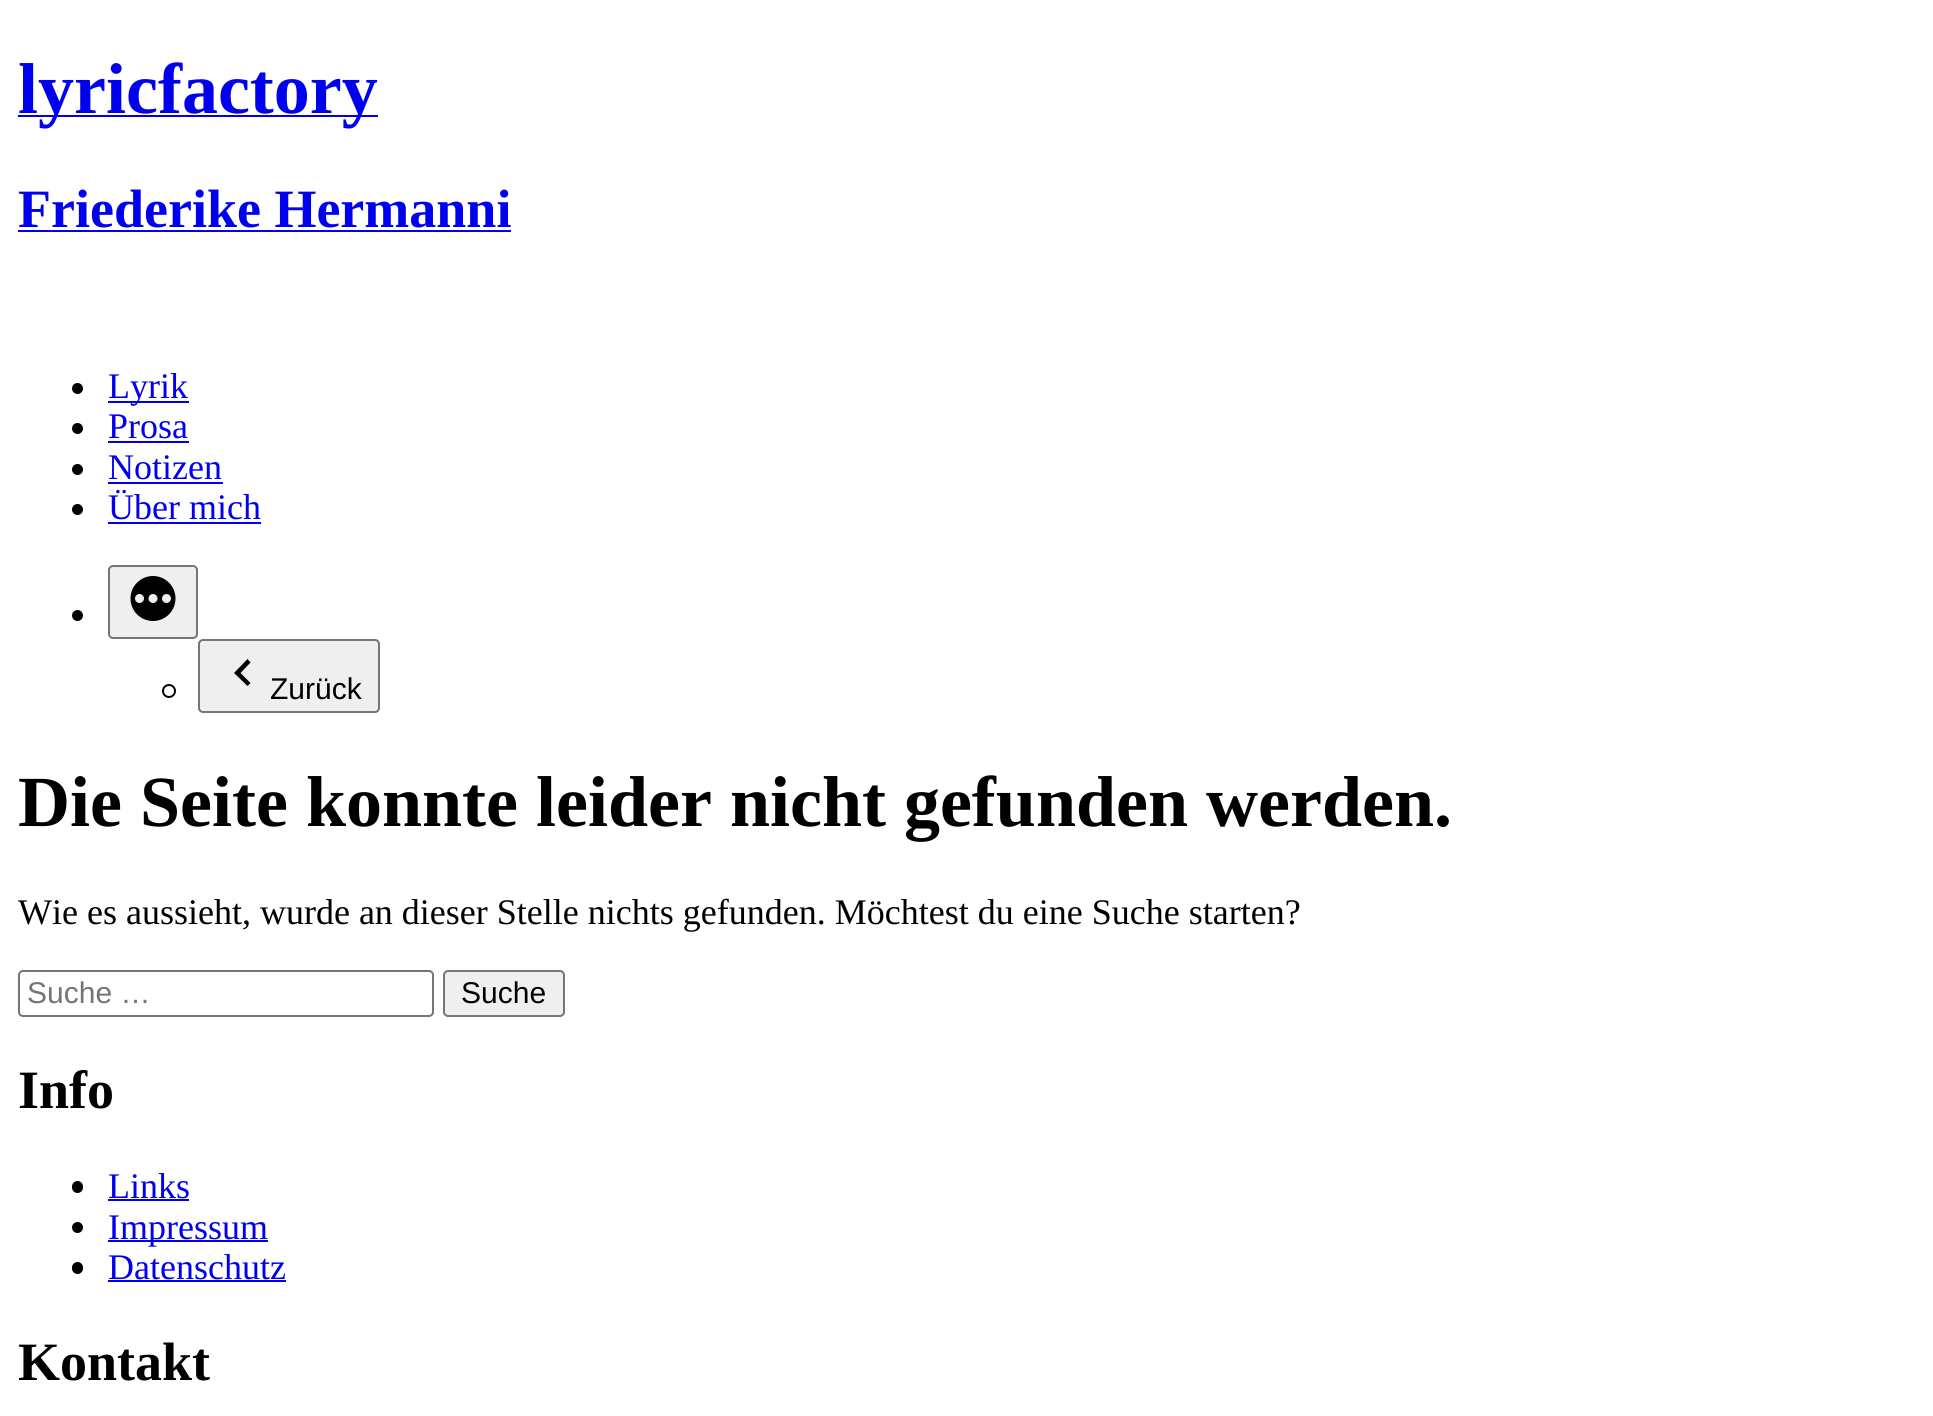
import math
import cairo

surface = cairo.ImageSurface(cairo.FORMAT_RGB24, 1933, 1416)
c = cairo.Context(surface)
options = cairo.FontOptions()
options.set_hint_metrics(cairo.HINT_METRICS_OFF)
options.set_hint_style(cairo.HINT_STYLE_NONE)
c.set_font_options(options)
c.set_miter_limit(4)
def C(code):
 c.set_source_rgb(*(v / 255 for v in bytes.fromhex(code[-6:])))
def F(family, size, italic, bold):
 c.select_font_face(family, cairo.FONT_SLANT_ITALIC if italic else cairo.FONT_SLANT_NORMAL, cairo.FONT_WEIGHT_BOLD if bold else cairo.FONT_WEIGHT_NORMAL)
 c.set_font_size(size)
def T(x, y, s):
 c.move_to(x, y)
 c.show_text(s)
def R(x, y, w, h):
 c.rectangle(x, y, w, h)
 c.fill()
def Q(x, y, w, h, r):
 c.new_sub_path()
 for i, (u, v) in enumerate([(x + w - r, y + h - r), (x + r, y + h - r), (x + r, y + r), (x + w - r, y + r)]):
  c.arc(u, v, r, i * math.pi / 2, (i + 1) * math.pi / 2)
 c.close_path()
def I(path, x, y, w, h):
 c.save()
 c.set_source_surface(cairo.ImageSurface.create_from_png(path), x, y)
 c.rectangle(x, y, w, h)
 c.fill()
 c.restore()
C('ffffff')
c.paint()
C('0000ee')
R(18,115,360,2)
F('Liberation Serif',72,0,1)
T(18,113,'lyricfactory')
F('Liberation Serif',54,0,1)
T(18,227,'Friederike Hermanni')
R(18,230,493,2)
C('000000')
c.new_path()
c.arc(77.5,388.5,5.5,0,2 * math.pi)
c.fill()
C('0000ee')
R(108,401,81,2)
F('Liberation Serif',36,0,0)
T(108,398,'Lyrik')
C('000000')
c.new_path()
c.arc(77.5,428.5,5.5,0,2 * math.pi)
c.fill()
C('0000ee')
T(108,438,'Prosa')
R(108,441,81,2)
C('000000')
c.new_path()
c.arc(77.5,469.5,5.5,0,2 * math.pi)
c.fill()
C('0000ee')
T(108,479,'Notizen')
R(108,482,115,2)
C('000000')
c.new_path()
c.arc(77.5,509.5,5.5,0,2 * math.pi)
c.fill()
C('0000ee')
T(108,519,'Über mich')
R(108,522,153,2)
C('000000')
c.new_path()
c.arc(77.5,615.5,5.5,0,2 * math.pi)
c.fill()
C('efefef')
Q(109,566,88,72,4)
c.fill_preserve()
C('767676')
c.stroke()
I('1.png',130,576,46,45)
c.arc(169,691,6,0,2 * math.pi)
C('000000')
c.stroke()
C('efefef')
Q(199,640,180,72,4)
c.fill_preserve()
C('767676')
c.stroke()
C('000000')
c.new_path()
c.move_to(250.5,662.5)
c.line_to(247.5,659)
c.line_to(234,673)
c.line_to(247.5,686)
c.line_to(250.5,683)
c.line_to(240.5,673)
c.close_path()
c.fill()
F('Liberation Sans',30,0,0)
T(270,699,'Zurück')
F('Liberation Serif',72,0,1)
T(18,826,'Die Seite konnte leider nicht gefunden werden.')
F('Liberation Serif',36,0,0)
T(18,924,'Wie es aussieht, wurde an dieser Stelle nichts gefunden. Möchtest du eine Suche starten?')
Q(19,971,414,45,4)
C('767676')
c.stroke()
F('Liberation Sans',30,0,0)
C('757575')
T(27,1003,'Suche …')
C('efefef')
Q(444,971,120,45,4)
c.fill_preserve()
C('767676')
c.stroke()
C('000000')
T(461,1003,'Suche')
F('Liberation Serif',54,0,1)
T(18,1108,'Info')
Q(72,1181,11,12,5.5)
c.fill()
F('Liberation Serif',36,0,0)
C('0000ee')
T(108,1198,'Links')
R(108,1199,81,2)
C('000000')
c.new_path()
c.arc(77.5,1227.5,5.5,0,2 * math.pi)
c.fill()
C('0000ee')
R(108,1240,160,2)
T(108,1239,'Impressum')
C('000000')
Q(72,1262,11,12,5.5)
c.fill()
C('0000ee')
T(108,1279,'Datenschutz')
R(108,1280,178,2)
F('Liberation Serif',54,0,1)
C('000000')
T(18,1380,'Kontakt')
surface.write_to_png('o.png')
